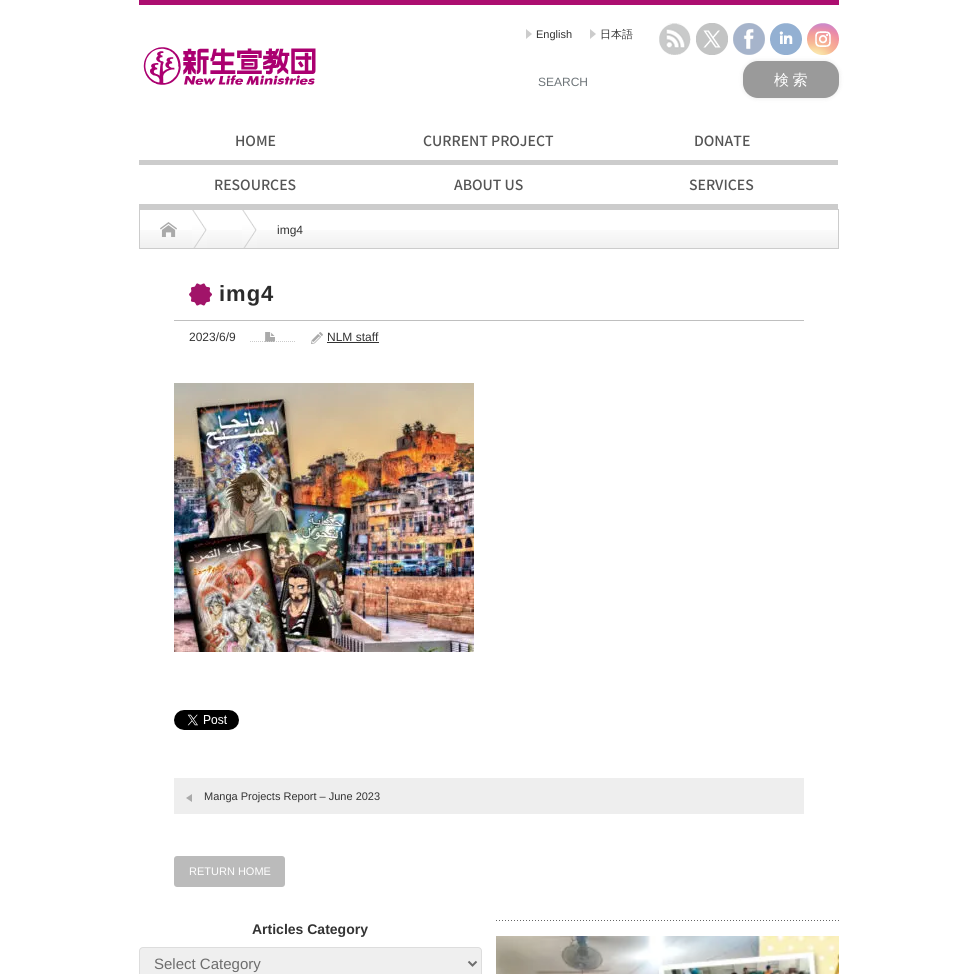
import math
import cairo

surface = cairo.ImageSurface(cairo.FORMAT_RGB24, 977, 974)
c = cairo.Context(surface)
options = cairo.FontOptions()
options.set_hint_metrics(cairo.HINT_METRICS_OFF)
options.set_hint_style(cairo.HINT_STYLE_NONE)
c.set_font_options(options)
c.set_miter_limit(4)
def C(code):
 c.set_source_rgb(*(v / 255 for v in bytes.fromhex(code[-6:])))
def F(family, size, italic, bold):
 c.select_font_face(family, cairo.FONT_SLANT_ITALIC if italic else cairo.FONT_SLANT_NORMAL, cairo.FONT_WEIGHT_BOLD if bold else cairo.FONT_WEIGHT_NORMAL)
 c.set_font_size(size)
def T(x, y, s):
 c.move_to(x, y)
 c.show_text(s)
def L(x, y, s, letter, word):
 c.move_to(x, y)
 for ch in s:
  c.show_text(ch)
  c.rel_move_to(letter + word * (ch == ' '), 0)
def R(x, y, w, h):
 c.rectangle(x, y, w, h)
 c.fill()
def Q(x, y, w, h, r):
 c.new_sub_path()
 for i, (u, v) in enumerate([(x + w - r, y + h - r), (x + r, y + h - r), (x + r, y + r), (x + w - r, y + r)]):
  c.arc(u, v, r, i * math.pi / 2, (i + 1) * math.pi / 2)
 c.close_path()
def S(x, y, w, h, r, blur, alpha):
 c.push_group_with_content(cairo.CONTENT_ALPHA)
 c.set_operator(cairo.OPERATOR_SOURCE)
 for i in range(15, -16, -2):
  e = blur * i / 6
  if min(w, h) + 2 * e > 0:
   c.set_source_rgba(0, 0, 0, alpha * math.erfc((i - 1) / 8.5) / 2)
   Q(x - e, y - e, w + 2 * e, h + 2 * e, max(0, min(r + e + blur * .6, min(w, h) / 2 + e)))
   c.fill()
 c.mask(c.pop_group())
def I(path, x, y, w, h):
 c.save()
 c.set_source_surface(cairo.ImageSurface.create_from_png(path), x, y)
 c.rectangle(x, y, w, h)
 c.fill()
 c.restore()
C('ffffff')
c.paint()
C('ac0e70')
R(139,0,700,5)
C('cccccc')
c.new_path()
c.move_to(526,39)
c.line_to(526,29)
c.line_to(532,34)
c.close_path()
c.fill()
F('Liberation Sans',11,0,0)
C('333333')
T(536,38,'English')
C('cccccc')
c.new_path()
c.move_to(590,39)
c.line_to(590,29)
c.line_to(596,34)
c.close_path()
c.fill()
F('WenQuanYi Zen Hei Medium',11,0,0)
C('333333')
T(600,38,'日本語')
I('1.png',659,23,32,32)
I('2.png',696,23,32,32)
I('3.png',733,23,32,32)
I('4.png',770,23,32,32)
I('5.png',807,23,32,32)
I('6.png',143,47,173,38)
F('Liberation Sans',12,0,0)
C('6d7478')
T(538,86,'SEARCH')
C('000000')
S(743,61,96,37,15,2.5,.1)
C('9a9a9a')
Q(743,61,96,37,15)
c.fill()
F('WenQuanYi Zen Hei Medium',15,0,0)
C('ffffff')
L(774,85,'検 索',0,-1)
C('cccccc')
R(139,160,699,5)
F('Noto Sans JP Medium',14,0,0)
C('555555')
T(235,146,'HOME')
T(423,146,'CURRENT PROJECT')
T(694,146,'DONATE')
C('cccccc')
R(139,204,699,5)
C('555555')
T(214,190,'RESOURCES')
T(454,190,'ABOUT US')
T(689,190,'SERVICES')
I('7.png',140,230,698,18)
c.rectangle(139.5,209.5,699,39)
C('cccccc')
c.set_line_width(1)
c.stroke()
I('8.png',192,210,15,38)
I('9.png',160,222,17,15)
I('8.png',242,210,15,38)
F('Liberation Sans',12,0,0)
C('333333')
T(277,234,'img4')
I('10.png',189,283,23,23)
C('bfbfbf')
R(174,320,630,1)
F('Liberation Sans',22,0,1)
C('2b2b2b')
L(219,301,'img4',1,0)
F('Liberation Sans',12,0,0)
C('333333')
T(189,341,'2023/6/9')
I('11.png',265,332,10,10)
c.new_path()
c.move_to(250,341.5)
c.line_to(296,341.5)
C('cccccc')
c.set_dash([1,1])
c.stroke()
I('12.png',311,332,12,12)
C('333333')
T(327,341,'NLM staff')
R(327,342,52,1)
I('13.png',174,383,300,269)
I('14.png',174,710,65,20)
C('eeeeee')
R(174,778,630,36)
I('15.png',186,794,6,8)
F('Liberation Sans',11,0,0)
C('333333')
T(204,800,'Manga Projects Report – June 2023')
C('bbbbbb')
Q(174,856,111,31,3)
c.fill()
C('ffffff')
T(189,875,'RETURN HOME')
F('Liberation Sans',14,0,1)
C('333333')
T(252,934,'Articles Category')
C('efefef')
Q(139.5,947.5,342,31,3.5)
c.fill_preserve()
C('dddddd')
c.set_dash([])
c.stroke()
c.new_path()
c.move_to(468.5,961.5)
c.line_to(472.5,965.5)
c.line_to(476.5,961.5)
C('6d6d6d')
c.set_line_width(2)
c.stroke()
F('Liberation Sans',15,0,0)
T(154,969,'Select Category')
I('16.png',496,920,343,1)
I('17.png',496,936,343,38)
surface.write_to_png('o.png')
